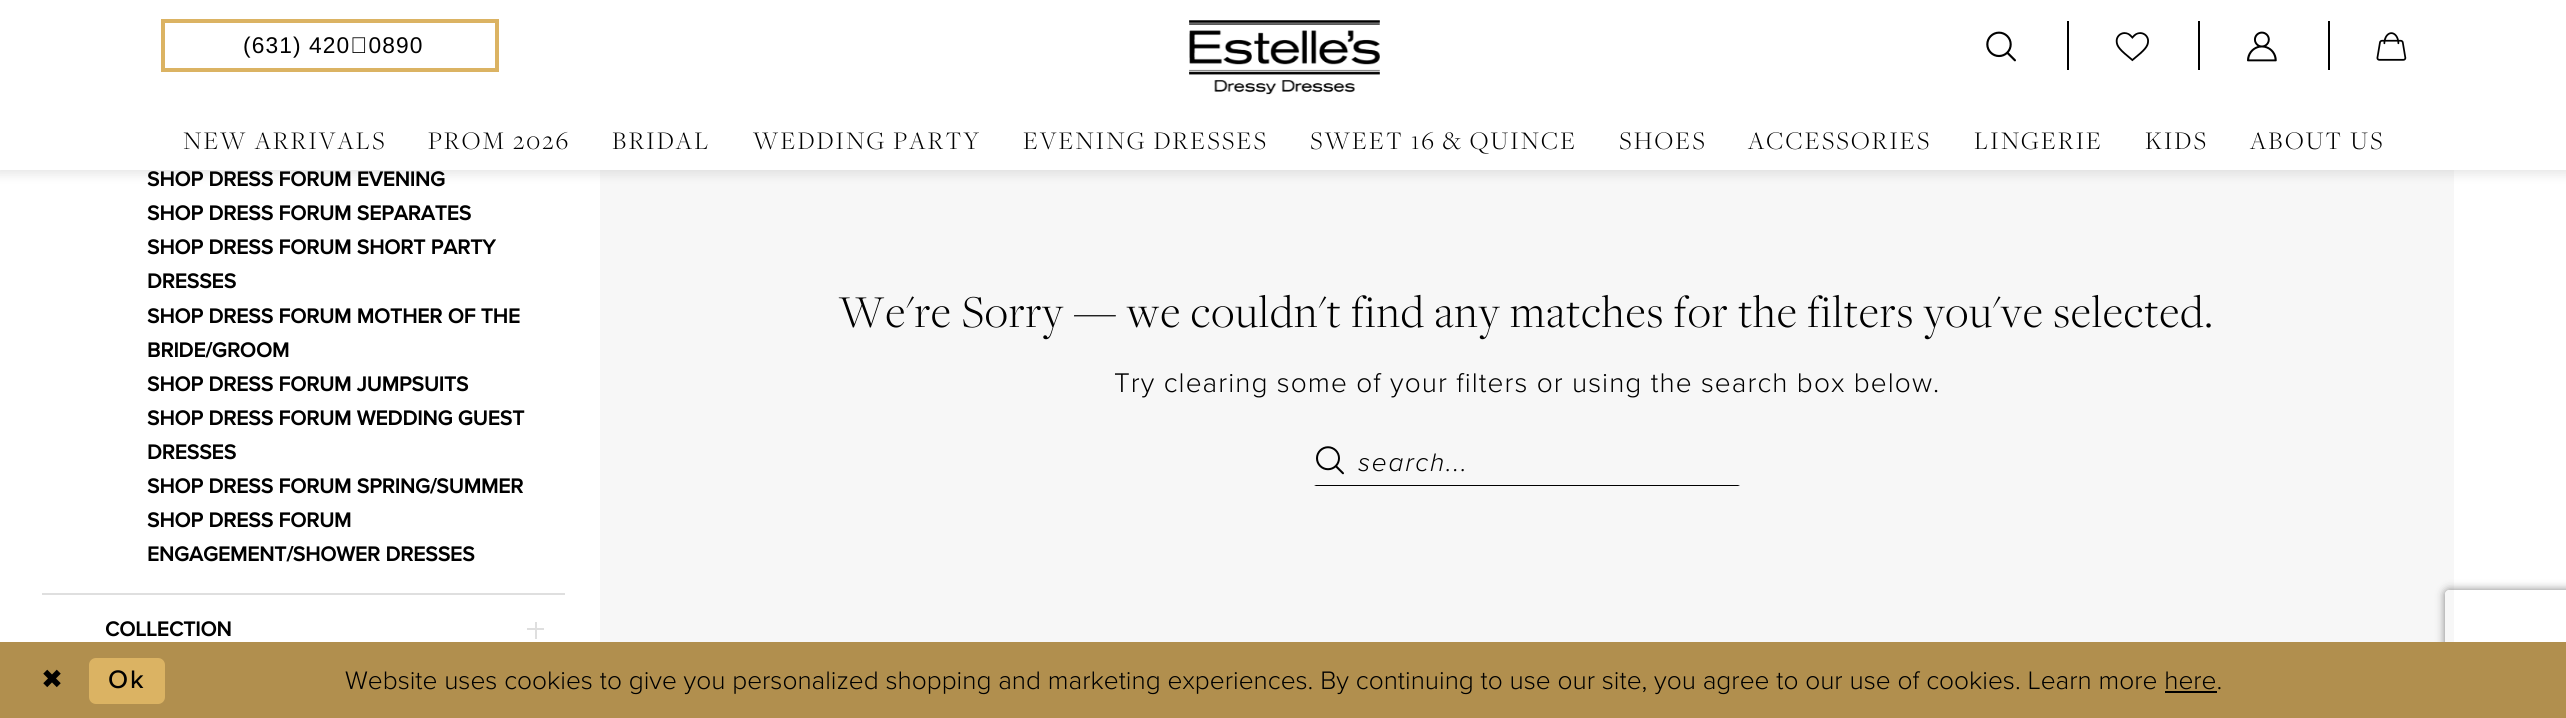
import math
import cairo

surface = cairo.ImageSurface(cairo.FORMAT_RGB24, 2566, 718)
c = cairo.Context(surface)
options = cairo.FontOptions()
options.set_hint_metrics(cairo.HINT_METRICS_OFF)
options.set_hint_style(cairo.HINT_STYLE_NONE)
c.set_font_options(options)
c.set_miter_limit(4)
def C(code):
 c.set_source_rgb(*(v / 255 for v in bytes.fromhex(code[-6:])))
def F(family, size, italic, bold):
 c.select_font_face(family, cairo.FONT_SLANT_ITALIC if italic else cairo.FONT_SLANT_NORMAL, cairo.FONT_WEIGHT_BOLD if bold else cairo.FONT_WEIGHT_NORMAL)
 c.set_font_size(size)
def T(x, y, s):
 c.move_to(x, y)
 c.show_text(s)
def L(x, y, s, letter, word):
 c.move_to(x, y)
 for ch in s:
  c.show_text(ch)
  c.rel_move_to(letter + word * (ch == ' '), 0)
def R(x, y, w, h):
 c.rectangle(x, y, w, h)
 c.fill()
def Q(x, y, w, h, r):
 c.new_sub_path()
 for i, (u, v) in enumerate([(x + w - r, y + h - r), (x + r, y + h - r), (x + r, y + r), (x + w - r, y + r)]):
  c.arc(u, v, r, i * math.pi / 2, (i + 1) * math.pi / 2)
 c.close_path()
def S(x, y, w, h, r, blur, alpha):
 c.push_group_with_content(cairo.CONTENT_ALPHA)
 c.set_operator(cairo.OPERATOR_SOURCE)
 for i in range(15, -16, -2):
  e = blur * i / 6
  if min(w, h) + 2 * e > 0:
   c.set_source_rgba(0, 0, 0, alpha * math.erfc((i - 1) / 8.5) / 2)
   Q(x - e, y - e, w + 2 * e, h + 2 * e, max(0, min(r + e + blur * .6, min(w, h) / 2 + e)))
   c.fill()
 c.mask(c.pop_group())
def I(path, x, y, w, h):
 c.save()
 c.set_source_surface(cairo.ImageSurface.create_from_png(path), x, y)
 c.rectangle(x, y, w, h)
 c.fill()
 c.restore()
C('ffffff')
c.paint()
C('f7f7f7')
R(600,170,1854,472)
C('1e1e1e')
S(-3,-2,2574,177,0,5,.1)
C('ffffff')
R(0,0,2566,170)
c.rectangle(163,21,334,49)
C('dbb363')
c.set_line_width(4)
c.stroke()
F('Liberation Sans',22.75,0,0)
C('000000')
L(243,53,'(631) 420‑0890',1.1,0)
I('1.png',1189,20,191,75)
I('2.png',1986,31,30,31)
R(2067,21,2,49)
I('3.png',2115,32,34,30)
R(2198,21,2,49)
I('4.png',2247,31,30,31)
R(2328,21,2,49)
I('5.png',2376,32,31,29)
F('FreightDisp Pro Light',26.25,0,0)
L(183,149,'NEW ARRIVALS',2.2,0)
L(428,149,'PROM 2026',2.2,0)
L(612,149,'BRIDAL',2.2,0)
L(753,149,'WEDDING PARTY',2.2,0)
L(1023,149,'EVENING DRESSES',2.2,0)
L(1310,149,'SWEET 16 & QUINCE',2.2,0)
L(1619,149,'SHOES',2.2,0)
L(1748,149,'ACCESSORIES',2.2,0)
L(1974,149,'LINGERIE',2.2,0)
L(2145,149,'KIDS',2.2,0)
L(2250,149,'ABOUT US',2.2,0)
C('dfdfdf')
R(42,593,523,2)
F('Proxima Nova',21,0,1)
C('000000')
T(147,186,'SHOP DRESS FORUM EVENING')
T(147,220,'SHOP DRESS FORUM SEPARATES')
T(147,254,'SHOP DRESS FORUM SHORT PARTY')
T(147,288,'DRESSES')
T(147,323,'SHOP DRESS FORUM MOTHER OF THE')
T(147,357,'BRIDE/GROOM')
T(147,391,'SHOP DRESS FORUM JUMPSUITS')
T(147,425,'SHOP DRESS FORUM WEDDING GUEST')
T(147,459,'DRESSES')
T(147,493,'SHOP DRESS FORUM SPRING/SUMMER')
T(147,527,'SHOP DRESS FORUM')
T(147,561,'ENGAGEMENT/SHOWER DRESSES')
T(105,636,'COLLECTION')
C('dfdfdf')
R(527,628,17,2)
R(535,622,2,17)
F('FreightDisp Pro Light',47.25,0,0)
C('000000')
L(839,327,'We\'re Sorry — we couldn\'t find any matches for the filters you\'ve selected.',1.05,0)
F('Proxima Nova Light',28,0,0)
L(1114,392,'Try clearing some of your filters or using the search box below.',1.07,0)
I('6.png',1316,446,28,29)
c.new_path()
c.move_to(1740,486)
c.line_to(1314,486)
c.line_to(1316,485)
c.line_to(1738,485)
c.close_path()
c.fill()
F('Proxima Nova Light',26.25,1,0)
L(1358,471,'search...',1.75,0)
c.save()
c.set_fill_rule(cairo.FILL_RULE_EVEN_ODD)
c.new_path()
c.move_to(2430,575)
c.line_to(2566,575)
c.line_to(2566,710)
c.line_to(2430,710)
c.close_path()
c.move_to(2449,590)
c.line_to(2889,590)
c.curve_to(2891,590,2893,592,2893,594)
c.line_to(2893,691)
c.curve_to(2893,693,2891,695,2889,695)
c.line_to(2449,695)
c.curve_to(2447,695,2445,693,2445,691)
c.line_to(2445,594)
c.curve_to(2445,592,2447,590,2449,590)
c.close_path()
c.clip()
C('808080')
S(2445,590,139,105,4,4.5,1)
c.restore()
C('b18f4e')
R(0,642,2566,76)
F('DejaVu Sans',26.25,0,0)
C('000000')
L(41,688,'✖',2,0)
C('dbb363')
Q(89,658,76,46,7)
c.fill()
F('Proxima Nova Medium',26.25,0,0)
C('000000')
L(108,688,'Ok',2,0)
F('Proxima Nova Light',26.25,0,0)
T(345,689,'Website uses cookies to give you personalized shopping and marketing experiences. By continuing to use our site, you agree to our use of cookies. Learn more here.')
R(2165,691,52,2)
surface.write_to_png('o.png')
